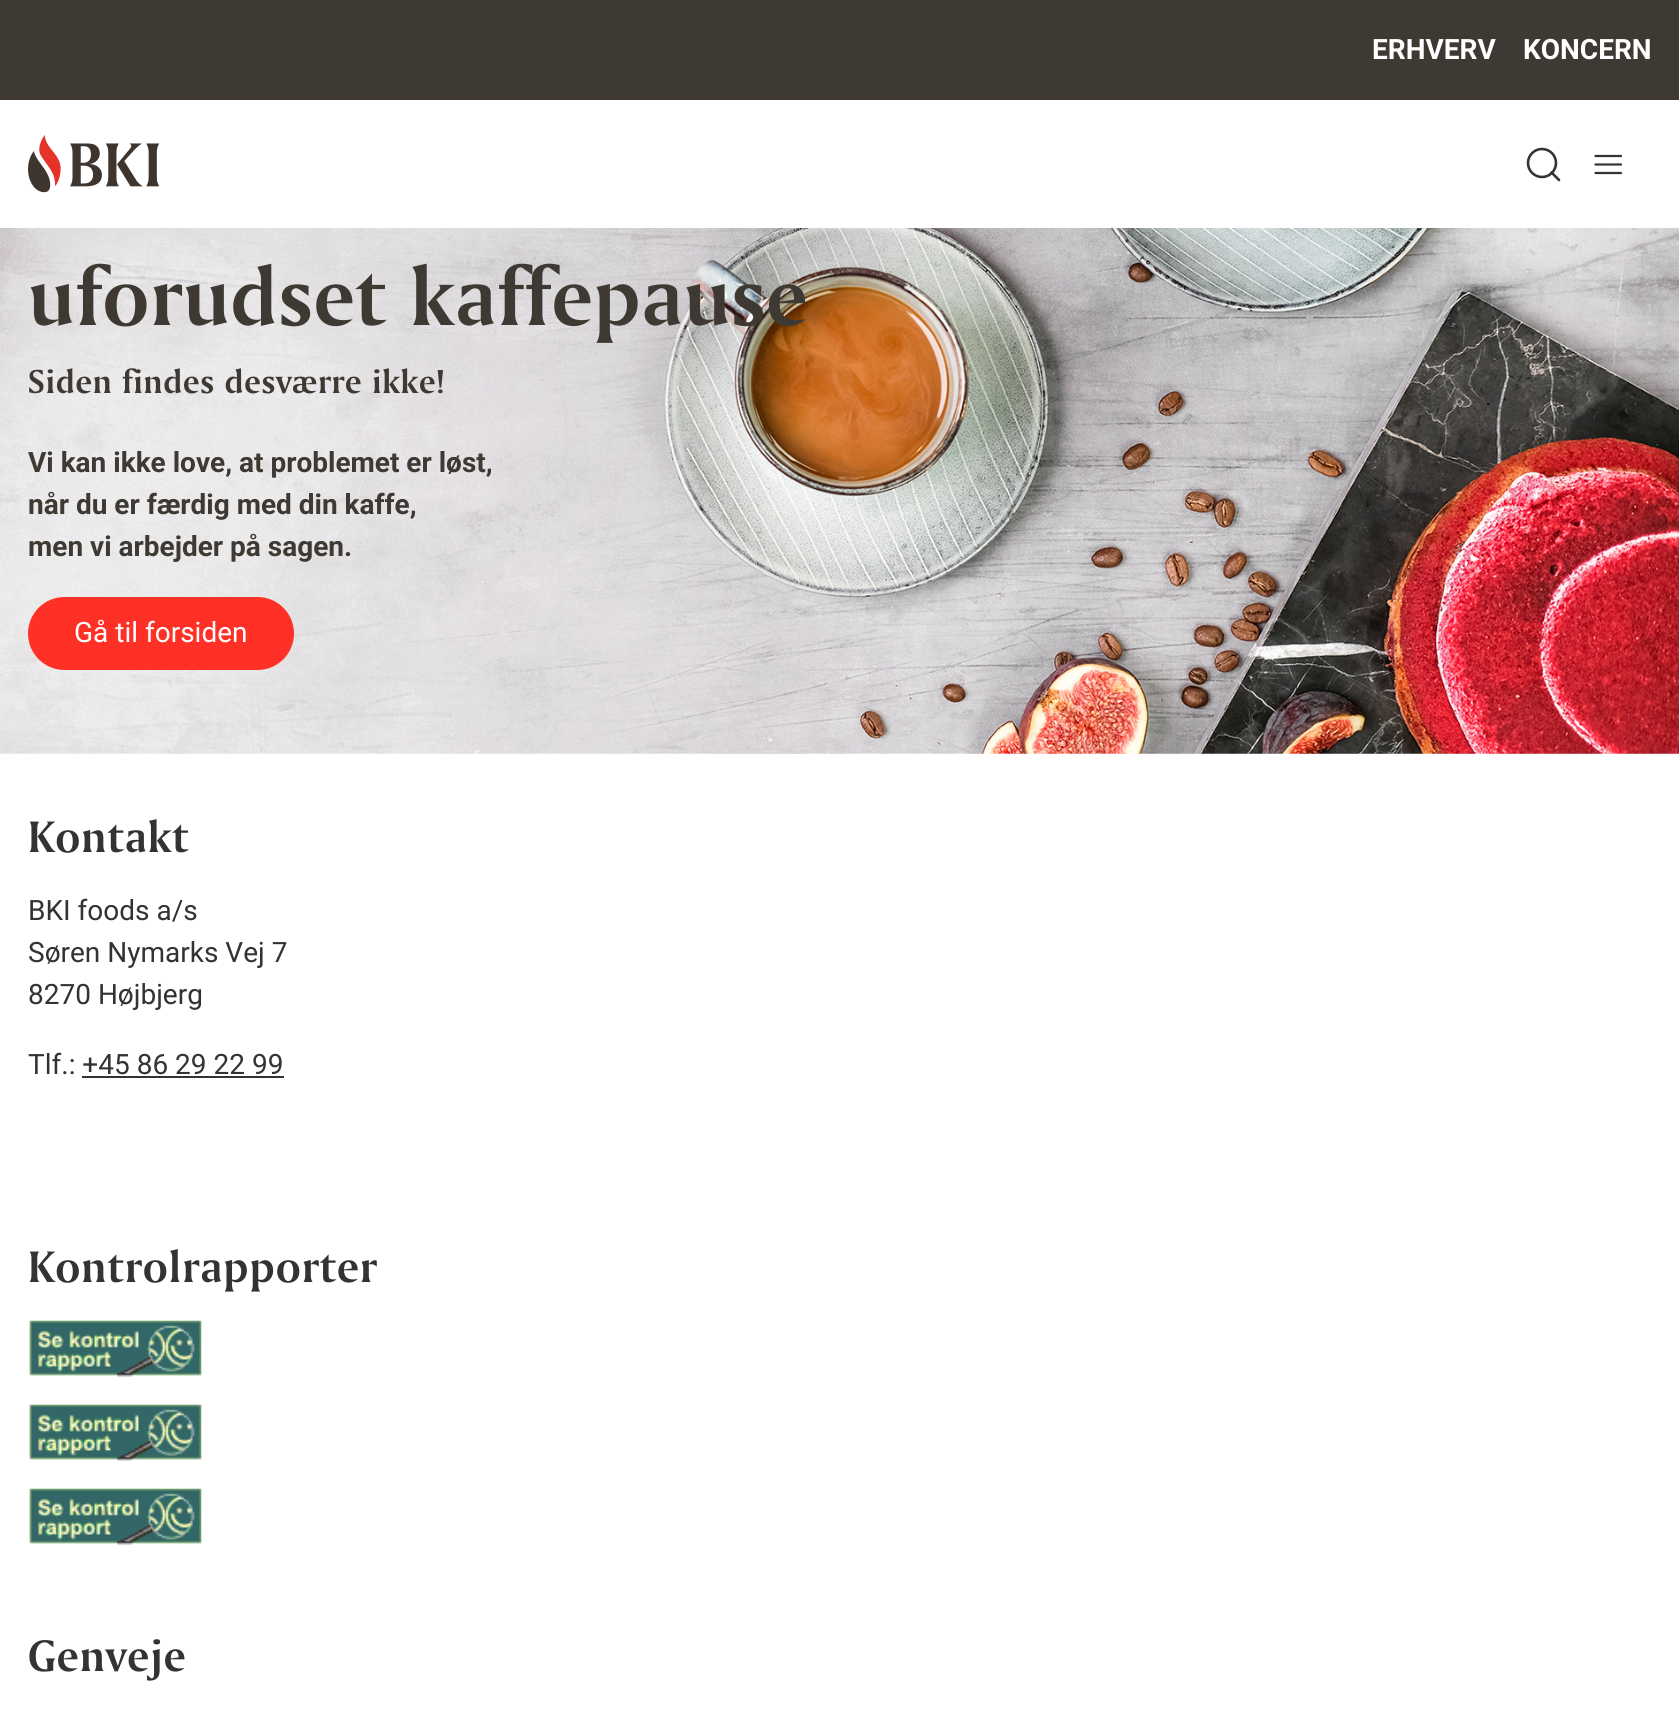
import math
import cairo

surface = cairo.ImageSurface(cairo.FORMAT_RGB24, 1679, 1719)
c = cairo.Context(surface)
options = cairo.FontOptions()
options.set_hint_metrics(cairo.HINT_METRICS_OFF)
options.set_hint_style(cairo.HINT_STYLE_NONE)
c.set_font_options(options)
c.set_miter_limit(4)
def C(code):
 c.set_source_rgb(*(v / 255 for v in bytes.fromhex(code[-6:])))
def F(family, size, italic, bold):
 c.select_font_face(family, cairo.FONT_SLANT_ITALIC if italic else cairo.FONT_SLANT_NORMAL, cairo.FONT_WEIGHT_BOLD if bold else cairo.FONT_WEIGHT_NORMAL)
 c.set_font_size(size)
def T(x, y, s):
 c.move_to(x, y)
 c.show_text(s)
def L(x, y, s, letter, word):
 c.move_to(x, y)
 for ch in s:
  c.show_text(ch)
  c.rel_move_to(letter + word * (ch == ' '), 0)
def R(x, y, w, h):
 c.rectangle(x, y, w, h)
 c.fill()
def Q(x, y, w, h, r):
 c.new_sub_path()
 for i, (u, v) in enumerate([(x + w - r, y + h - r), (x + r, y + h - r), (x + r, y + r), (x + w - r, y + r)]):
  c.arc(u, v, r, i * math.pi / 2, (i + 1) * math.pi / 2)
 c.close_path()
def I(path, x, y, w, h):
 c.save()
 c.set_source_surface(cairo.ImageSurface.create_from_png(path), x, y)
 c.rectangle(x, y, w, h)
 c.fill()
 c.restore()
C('ffffff')
c.paint()
C('3f3934')
R(0,0,1679,100)
F('Roboto',28,0,1)
C('ffffff')
T(1372,59,'ERHVERV')
T(1523,59,'KONCERN')
I('1.png',28,135,131,58)
c.arc(1542,163,14,0,2 * math.pi)
C('333333')
c.set_line_width(2.6)
c.stroke()
c.new_path()
c.move_to(1559,180)
c.line_to(1551.5,172.5)
c.set_line_cap(cairo.LINE_CAP_ROUND)
c.set_line_join(cairo.LINE_JOIN_ROUND)
c.stroke()
c.new_path()
c.move_to(1595.5,164.5)
c.line_to(1621,164.5)
c.move_to(1595.5,156)
c.line_to(1621,156)
c.move_to(1595.5,173)
c.line_to(1621,173)
c.set_line_width(2.2)
c.stroke()
I('2.png',0,228,1679,526)
F('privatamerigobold',86.75,0,1)
C('3f3934')
L(28,325,'uforudset kaffepause',.9,0)
F('privatamerigobold',35,0,1)
L(28,393,'Siden findes desværre ikke!',.7,0)
F('Roboto',28,0,1)
T(28,472,'Vi kan ikke love, at problemet er løst,')
T(28,514,'når du er færdig med din kaffe,')
T(28,556,'men vi arbejder på sagen.')
C('ff3025')
Q(28,597,266,73,36.5)
c.fill()
F('Roboto',28,0,0)
C('ffffff')
T(74,642,'Gå til forsiden')
F('privatamerigobold',46.5,0,1)
C('333333')
L(28,852,'Kontakt',.9,0)
F('Roboto',28,0,0)
T(28,920,'BKI foods a/s')
T(28,962,'Søren Nymarks Vej 7')
T(28,1004,'8270 Højbjerg')
T(28,1074,'Tlf.: +45 86 29 22 99')
R(82,1076,202,2)
F('privatamerigobold',46.5,0,1)
L(28,1282,'Kontrolrapporter',.9,0)
I('3.png',29,1320,173,57)
I('3.png',29,1404,173,57)
I('3.png',29,1488,173,57)
L(28,1671,'Genveje',.9,0)
surface.write_to_png('o.png')
